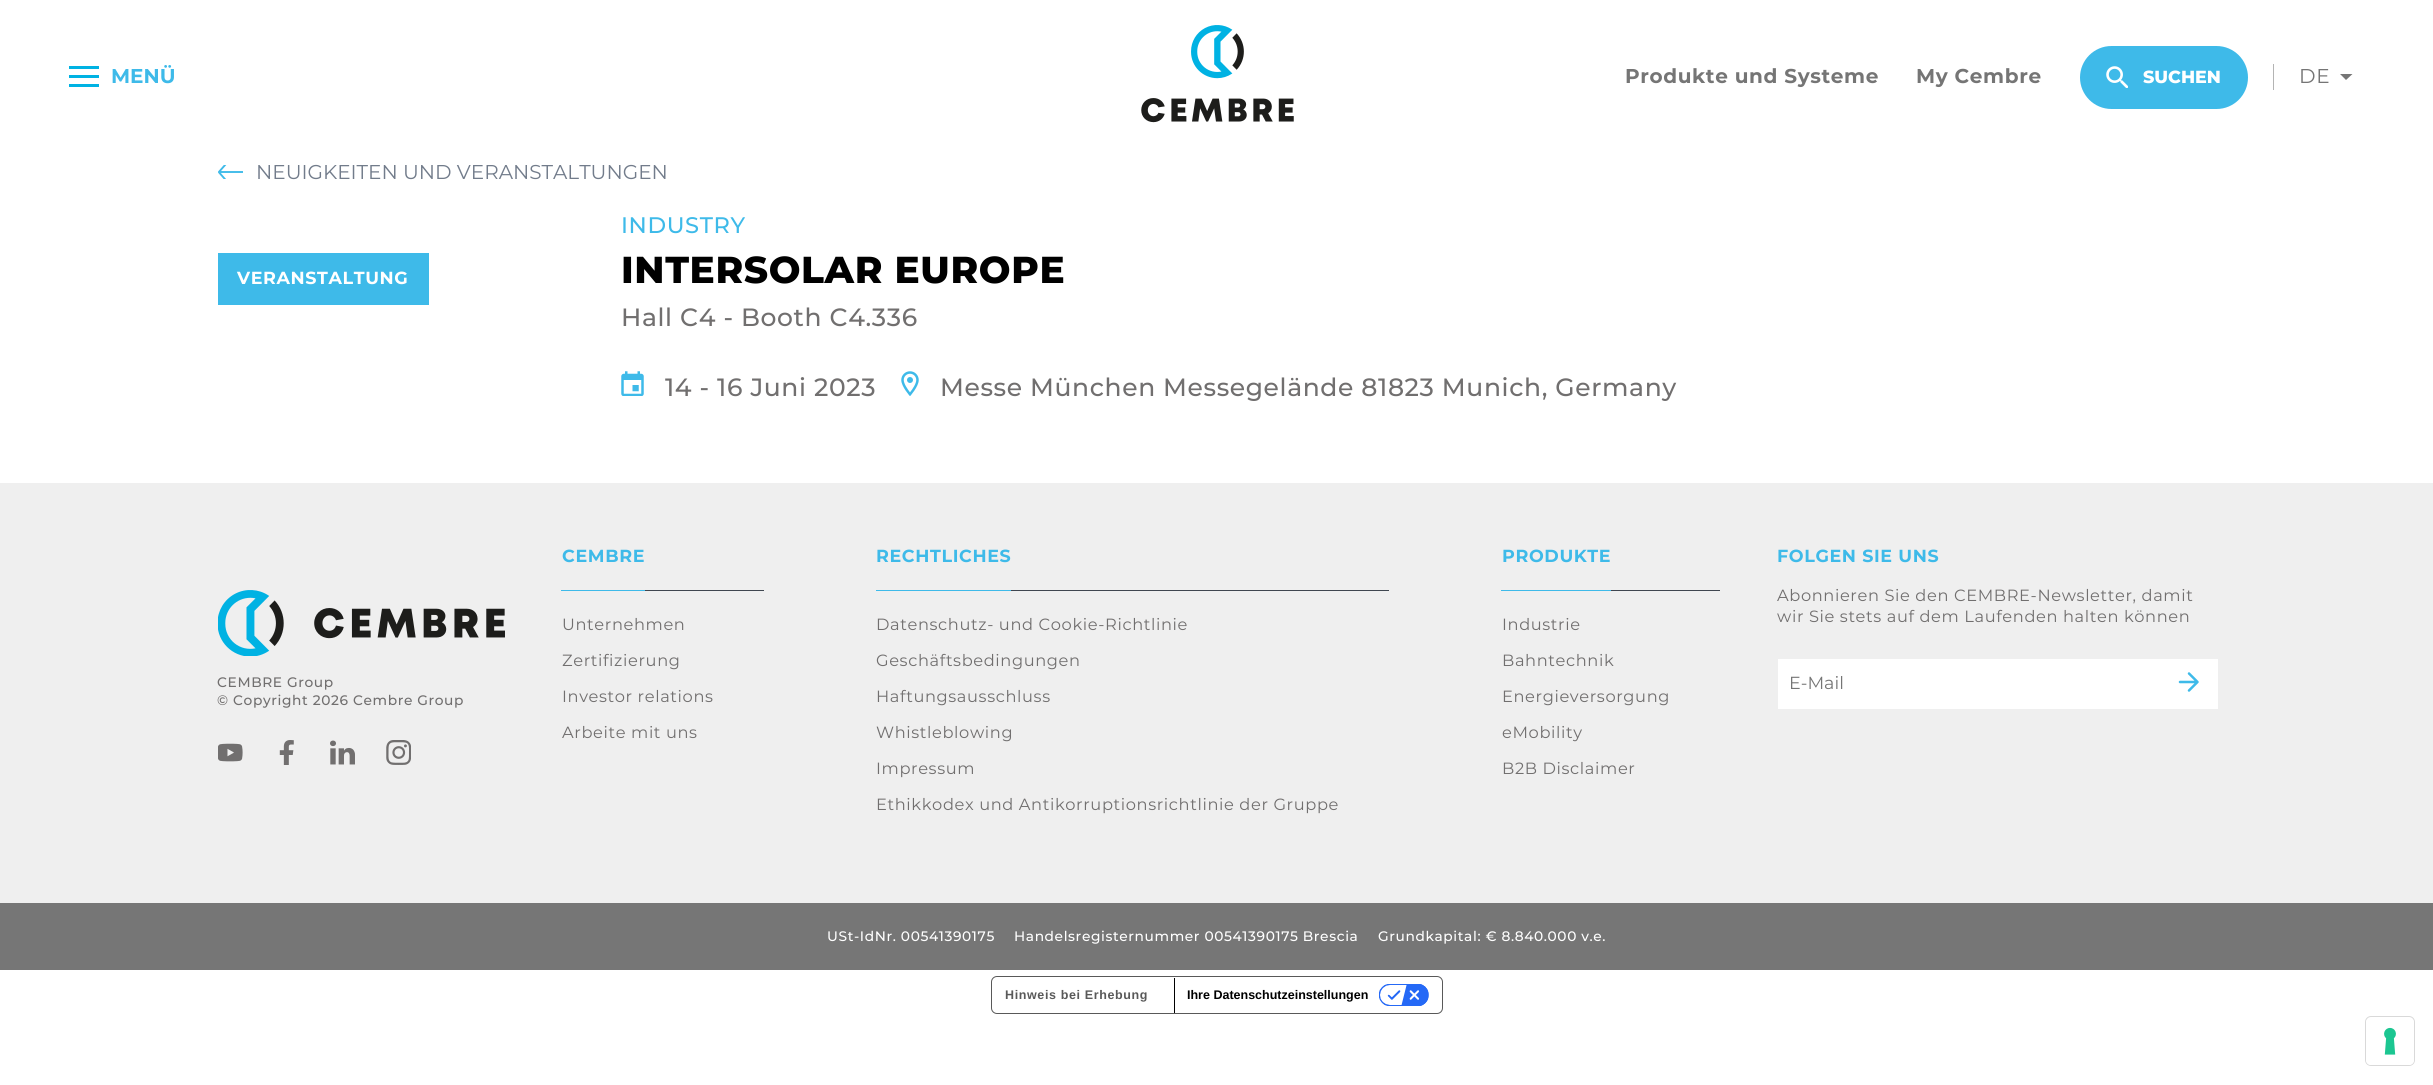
import math
import cairo

surface = cairo.ImageSurface(cairo.FORMAT_RGB24, 2433, 1085)
c = cairo.Context(surface)
options = cairo.FontOptions()
options.set_hint_metrics(cairo.HINT_METRICS_OFF)
options.set_hint_style(cairo.HINT_STYLE_NONE)
c.set_font_options(options)
c.set_miter_limit(4)
def C(code):
 c.set_source_rgb(*(v / 255 for v in bytes.fromhex(code[-6:])))
def F(family, size, italic, bold):
 c.select_font_face(family, cairo.FONT_SLANT_ITALIC if italic else cairo.FONT_SLANT_NORMAL, cairo.FONT_WEIGHT_BOLD if bold else cairo.FONT_WEIGHT_NORMAL)
 c.set_font_size(size)
def T(x, y, s):
 c.move_to(x, y)
 c.show_text(s)
def L(x, y, s, letter, word):
 c.move_to(x, y)
 for ch in s:
  c.show_text(ch)
  c.rel_move_to(letter + word * (ch == ' '), 0)
def R(x, y, w, h):
 c.rectangle(x, y, w, h)
 c.fill()
def Q(x, y, w, h, r):
 c.new_sub_path()
 for i, (u, v) in enumerate([(x + w - r, y + h - r), (x + r, y + h - r), (x + r, y + r), (x + w - r, y + r)]):
  c.arc(u, v, r, i * math.pi / 2, (i + 1) * math.pi / 2)
 c.close_path()
def I(path, x, y, w, h):
 c.save()
 c.set_source_surface(cairo.ImageSurface.create_from_png(path), x, y)
 c.rectangle(x, y, w, h)
 c.fill()
 c.restore()
C('ffffff')
c.paint()
C('00b2e3')
R(69,66,30,3)
R(69,75,30,3)
R(69,84,30,3)
F('Montserrat',20,0,1)
C('3ebae9')
T(111,83,'MENÜ')
I('1.png',1141,25,153,98)
C('757575')
L(1625,83,'Produkte und Systeme',.62,0)
L(1916,83,'My Cembre',.62,0)
C('3ebae9')
Q(2080,46,168,63,31.5)
c.fill()
I('2.png',2106,66,22,22)
F('Montserrat ExtraBold',17.5,0,0)
C('ffffff')
T(2143,83,'SUCHEN')
C('b4b4b4')
R(2273,64,1,26)
F('Montserrat',20,0,0)
C('757575')
L(2299,83,'DE',.62,0)
C('767676')
c.new_path()
c.move_to(2340,74)
c.line_to(2352.5,74)
c.line_to(2346,80)
c.close_path()
c.fill()
I('3.png',218,165,25,14)
C('727c8b')
T(256,179,'NEUIGKEITEN UND VERANSTALTUNGEN')
C('3ebae9')
R(218,253,211,52)
F('Montserrat',17.5,0,1)
C('ffffff')
L(237,284,'VERANSTALTUNG',.62,0)
F('Montserrat Medium',22.5,0,0)
C('3ebae9')
L(621,233,'INDUSTRY',.62,0)
F('Montserrat ExtraBold',37.5,0,0)
C('000000')
L(621,283,'INTERSOLAR EUROPE',.62,0)
F('Montserrat Medium',25,0,0)
C('716f6f')
L(621,326,'Hall C4 - Booth C4.336',.62,0)
I('4.png',621,371,23,25)
L(665,396,'14 - 16 Juni 2023',.62,0)
I('5.png',901,371,18,25)
L(940,396,'Messe München Messegelände 81823 Munich, Germany',.62,0)
C('efefef')
R(0,483,2433,420)
I('6.png',218,590,287,66)
F('Montserrat Medium',13.75,0,0)
C('716f6f')
L(217,687,'CEMBRE Group',.62,0)
L(217,705,'© Copyright 2026 Cembre Group',.62,0)
I('7.png',218,743,25,19)
I('8.png',279,740,15,25)
I('9.png',330,740,25,25)
I('10.png',386,740,25,25)
C('3f4650')
R(645,590,119,1)
C('3ebae9')
R(561,590,84,1)
F('Montserrat',17.5,0,1)
L(562,562,'CEMBRE',.62,0)
F('Montserrat',16.25,0,0)
C('716f6f')
L(562,630,'Unternehmen',.62,0)
L(562,666,'Zertifizierung',.62,0)
L(562,702,'Investor relations',.62,0)
L(562,738,'Arbeite mit uns',.62,0)
C('3f4650')
R(1011,590,378,1)
C('3ebae9')
R(876,590,135,1)
F('Montserrat',17.5,0,1)
L(876,562,'RECHTLICHES',.62,0)
F('Montserrat',16.25,0,0)
C('716f6f')
L(876,630,'Datenschutz- und Cookie-Richtlinie',.62,0)
L(876,666,'Geschäftsbedingungen',.62,0)
L(876,702,'Haftungsausschluss',.62,0)
L(876,738,'Whistleblowing',.62,0)
L(876,774,'Impressum',.62,0)
L(876,810,'Ethikkodex und Antikorruptionsrichtlinie der Gruppe',.62,0)
C('3f4650')
R(1611,590,109,1)
C('3ebae9')
R(1501,590,110,1)
F('Montserrat',17.5,0,1)
L(1502,562,'PRODUKTE',.62,0)
F('Montserrat',16.25,0,0)
C('716f6f')
L(1502,630,'Industrie',.62,0)
L(1502,666,'Bahntechnik',.62,0)
L(1502,702,'Energieversorgung',.62,0)
L(1502,738,'eMobility',.62,0)
L(1502,774,'B2B Disclaimer',.62,0)
F('Montserrat',17.5,0,1)
C('3ebae9')
L(1777,562,'FOLGEN SIE UNS',.62,0)
F('Montserrat',16.25,0,0)
C('716f6f')
L(1777,601,'Abonnieren Sie den CEMBRE-Newsletter, damit',.62,0)
L(1777,622,'wir Sie stets auf dem Laufenden halten können',.62,0)
C('ffffff')
R(1778,659,440,50)
F('Montserrat',17.5,0,0)
C('757575')
T(1789,689,'E-Mail')
c.new_path()
c.move_to(2180,682)
c.line_to(2197.5,682)
c.move_to(2189,673.5)
c.line_to(2197.5,682)
c.line_to(2189,690.5)
C('3ebae9')
c.set_line_width(2.5)
c.set_line_cap(cairo.LINE_CAP_ROUND)
c.set_line_join(cairo.LINE_JOIN_ROUND)
c.stroke()
C('767676')
R(0,903,2433,67)
F('Montserrat Medium',13.75,0,0)
C('ffffff')
L(827,941,'USt-IdNr. 00541390175',.62,0)
L(1014,941,'Handelsregisternummer 00541390175 Brescia',.62,0)
L(1378,941,'Grundkapital: € 8.840.000 v.e.',.62,0)
Q(991.5,976.5,451,37,5.5)
C('595959')
c.set_line_width(1)
c.set_line_cap(cairo.LINE_CAP_BUTT)
c.set_line_join(cairo.LINE_JOIN_MITER)
c.stroke()
F('Liberation Sans',12.5,0,1)
L(1005,999,'Hinweis bei Erhebung',.62,0)
C('000000')
R(1174,978,1,35)
T(1187,999,'Ihre Datenschutzeinstellungen')
I('11.png',1379,984,50,22)
Q(2365.5,1016.5,49,49,5.5)
C('d9d9d9')
c.stroke()
C('ffffff')
Q(2366,1018,48,47,5)
c.fill()
I('12.png',2384,1027,12,28)
surface.write_to_png('o.png')
